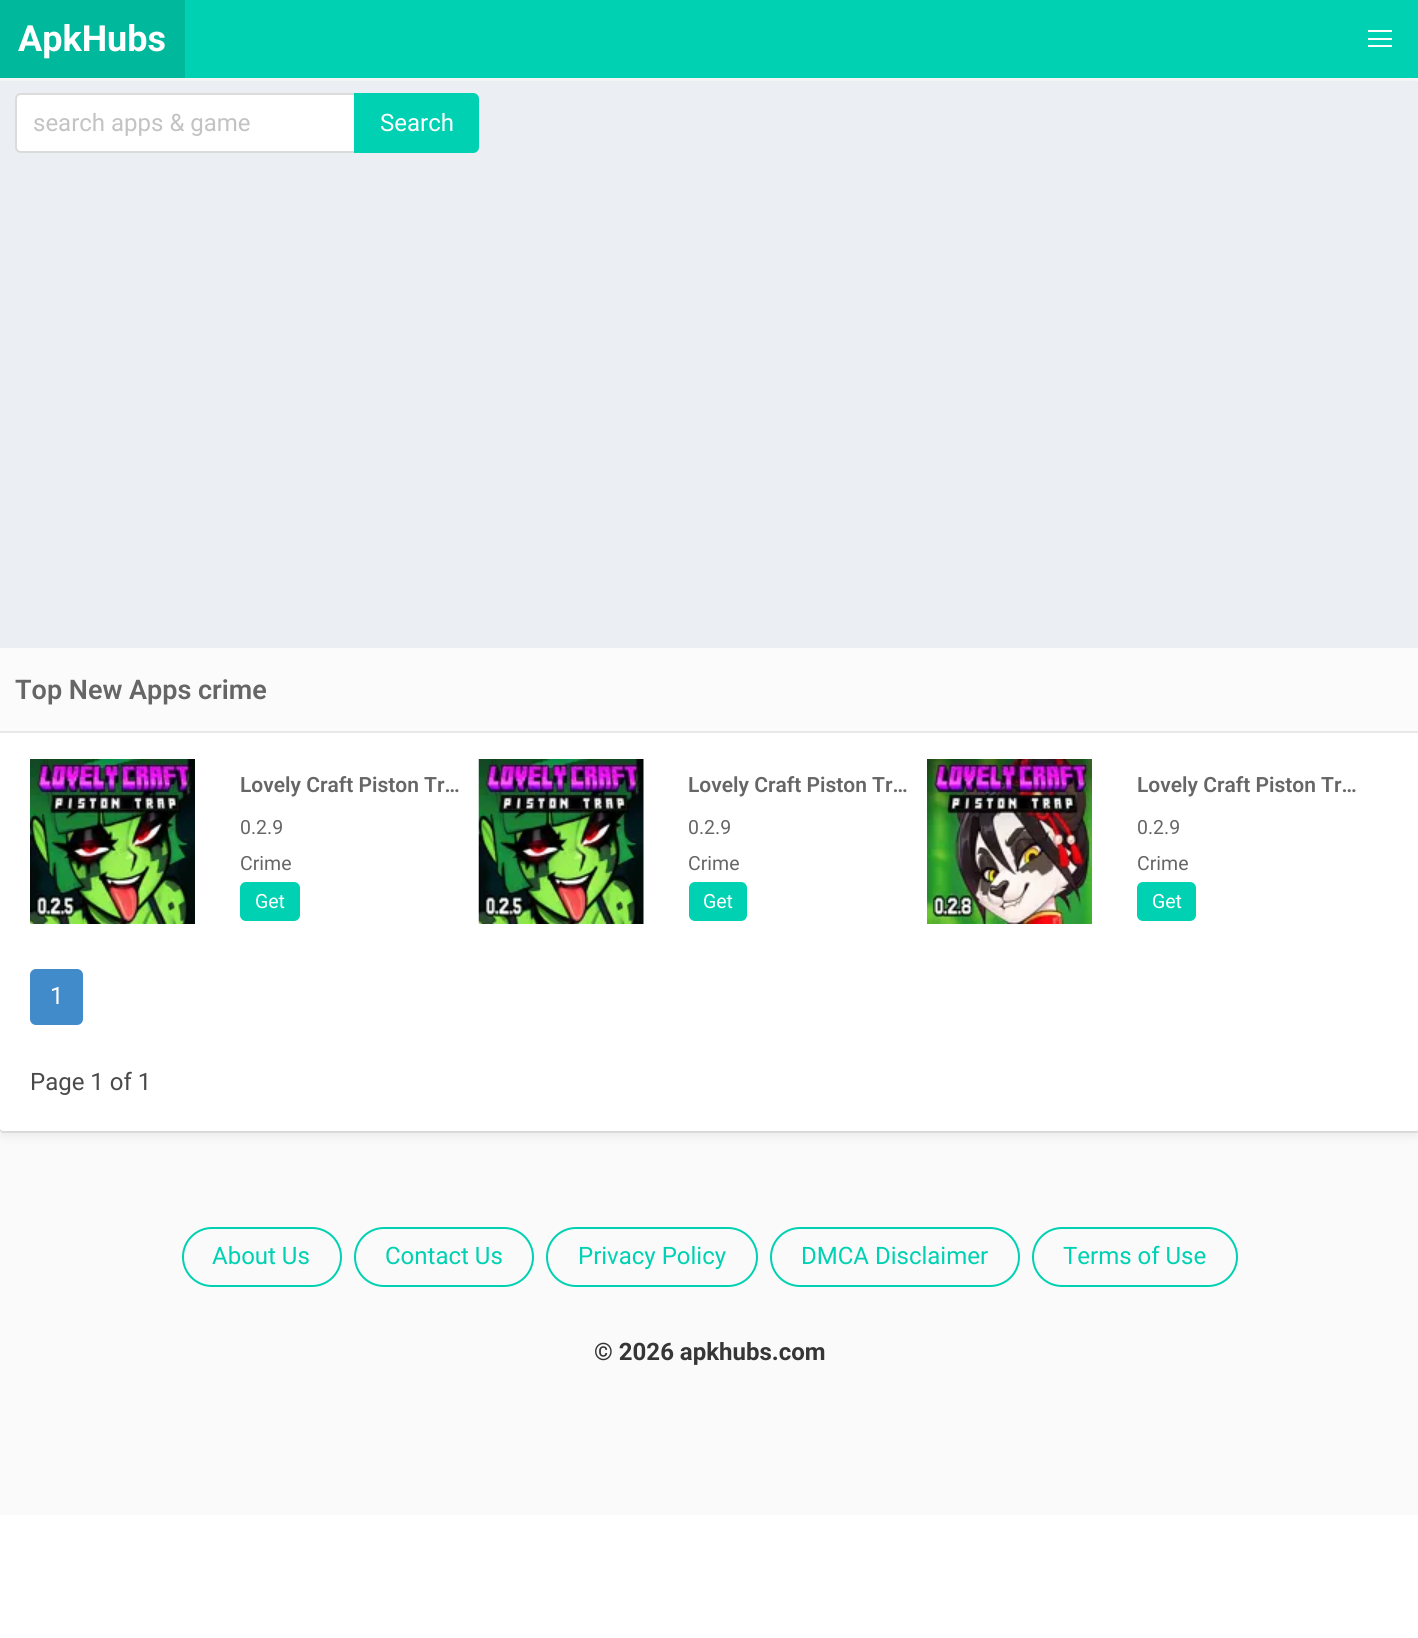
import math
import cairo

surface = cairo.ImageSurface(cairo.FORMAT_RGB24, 1418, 1638)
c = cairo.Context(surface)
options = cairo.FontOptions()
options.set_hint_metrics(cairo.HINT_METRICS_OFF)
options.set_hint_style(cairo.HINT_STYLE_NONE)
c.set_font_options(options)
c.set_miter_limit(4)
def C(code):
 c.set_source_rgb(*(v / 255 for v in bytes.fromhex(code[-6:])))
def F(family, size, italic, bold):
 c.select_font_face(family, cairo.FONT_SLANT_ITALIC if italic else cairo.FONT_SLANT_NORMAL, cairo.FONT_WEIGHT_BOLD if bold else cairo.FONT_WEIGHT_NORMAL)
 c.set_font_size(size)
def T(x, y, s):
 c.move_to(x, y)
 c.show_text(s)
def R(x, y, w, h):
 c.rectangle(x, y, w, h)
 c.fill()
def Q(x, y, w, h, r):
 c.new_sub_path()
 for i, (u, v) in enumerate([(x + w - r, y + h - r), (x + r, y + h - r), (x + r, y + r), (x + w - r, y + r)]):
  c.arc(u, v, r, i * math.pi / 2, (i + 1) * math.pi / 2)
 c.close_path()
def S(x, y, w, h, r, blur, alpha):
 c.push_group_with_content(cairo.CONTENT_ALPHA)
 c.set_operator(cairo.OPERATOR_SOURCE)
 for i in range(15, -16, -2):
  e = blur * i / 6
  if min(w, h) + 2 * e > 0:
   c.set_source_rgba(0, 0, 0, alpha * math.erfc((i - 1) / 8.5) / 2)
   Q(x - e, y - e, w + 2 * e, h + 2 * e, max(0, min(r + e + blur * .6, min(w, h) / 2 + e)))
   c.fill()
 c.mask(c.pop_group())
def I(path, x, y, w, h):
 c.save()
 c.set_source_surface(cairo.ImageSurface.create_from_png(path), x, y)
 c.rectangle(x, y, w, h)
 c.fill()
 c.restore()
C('ffffff')
c.paint()
C('ebeef2')
R(0,81,1418,1050)
C('f5f5f5')
R(0,78,1418,3)
C('00d1b2')
R(185,0,1233,78)
C('00b89c')
R(0,0,185,78)
F('Roboto',36,0,1)
C('ffffff')
T(18,51,'ApkHubs')
R(1368,30,24,2)
R(1368,38,24,2)
R(1368,45,24,2)
c.new_path()
c.move_to(21,94)
c.line_to(355,94)
c.line_to(355,152)
c.line_to(21,152)
c.curve_to(18,152,16,150,16,147)
c.line_to(16,99)
c.curve_to(16,96,18,94,21,94)
c.close_path()
c.fill_preserve()
C('dbdbdb')
c.stroke()
F('Roboto',24,0,0)
C('c3c3c3')
T(33,131,'search apps & game')
C('00d1b2')
c.new_path()
c.move_to(354,93)
c.line_to(473,93)
c.curve_to(476.5,93,479,95.5,479,99)
c.line_to(479,147)
c.curve_to(479,150.5,476.5,153,473,153)
c.line_to(354,153)
c.close_path()
c.fill()
C('ffffff')
T(380,131,'Search')
C('fafafa')
R(0,1131,1418,384)
C('000000')
S(0,654,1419,483,3,4.5,.06)
c.set_source_rgba(0.141,0.149,0.184,0.1)
c.new_path()
c.move_to(0,1128)
c.curve_to(0,1130,0,1133,3,1133)
c.line_to(1416,1133)
c.curve_to(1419,1133,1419,1130,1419,1128)
c.curve_to(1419,1130,1418,1131,1416,1131)
c.line_to(3,1131)
c.curve_to(1,1131,0,1130,0,1128)
c.close_path()
c.fill()
C('ffffff')
Q(0,648,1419,483,3)
c.fill()
C('fbfbfb')
R(0,648,1418,83)
C('e8e8e8')
R(0,731,1418,2)
F('Roboto SemiBold',27,0,0)
C('666666')
T(15,699,'Top New Apps crime')
I('1.png',30,759,165,165)
F('Roboto SemiBold',21,0,0)
T(240,792,'Lovely Craft Piston Tr…')
F('Roboto',19.5,0,0)
T(240,834,'0.2.9')
T(240,870,'Crime')
C('00d1b2')
Q(240,882,60,39,6)
c.fill()
C('ffffff')
T(255,908,'Get')
I('2.png',478,759,166,165)
F('Roboto SemiBold',21,0,0)
C('666666')
T(688,792,'Lovely Craft Piston Tr…')
F('Roboto',19.5,0,0)
T(688,834,'0.2.9')
T(688,870,'Crime')
C('00d1b2')
Q(689,882,58,39,6)
c.fill()
C('ffffff')
T(703,908,'Get')
I('3.png',927,759,165,165)
F('Roboto SemiBold',21,0,0)
C('666666')
T(1137,792,'Lovely Craft Piston Tr…')
F('Roboto',19.5,0,0)
T(1137,834,'0.2.9')
T(1137,870,'Crime')
C('00d1b2')
Q(1137,882,59,39,6)
c.fill()
C('ffffff')
T(1152,908,'Get')
C('428bca')
Q(31,970,51,54,5)
c.fill_preserve()
c.stroke()
F('Roboto',24,0,0)
C('ffffff')
T(50,1004,'1')
C('4a4a4a')
T(30,1090,'Page 1 of 1')
Q(183,1228,158,58,29)
C('00d1b2')
c.stroke()
T(212,1264,'About Us')
Q(355,1228,178,58,29)
c.stroke()
T(385,1264,'Contact Us')
Q(547,1228,210,58,29)
c.stroke()
T(578,1264,'Privacy Policy')
Q(771,1228,248,58,29)
c.stroke()
T(801,1264,'DMCA Disclaimer')
Q(1033,1228,204,58,29)
c.stroke()
T(1063,1264,'Terms of Use')
F('Roboto',24,0,1)
C('363636')
T(594,1360,'© 2026 apkhubs.com')
surface.write_to_png('o.png')
